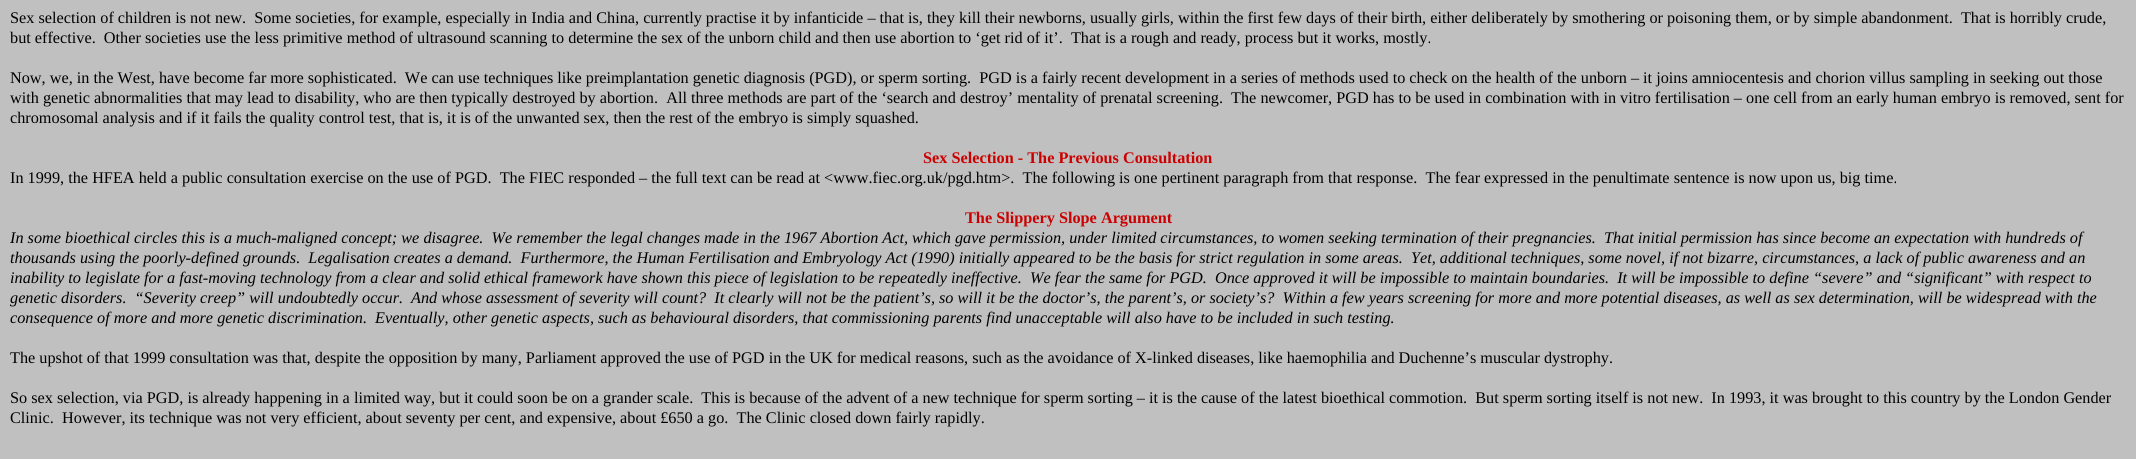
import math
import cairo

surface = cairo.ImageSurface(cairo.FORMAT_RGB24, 2136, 459)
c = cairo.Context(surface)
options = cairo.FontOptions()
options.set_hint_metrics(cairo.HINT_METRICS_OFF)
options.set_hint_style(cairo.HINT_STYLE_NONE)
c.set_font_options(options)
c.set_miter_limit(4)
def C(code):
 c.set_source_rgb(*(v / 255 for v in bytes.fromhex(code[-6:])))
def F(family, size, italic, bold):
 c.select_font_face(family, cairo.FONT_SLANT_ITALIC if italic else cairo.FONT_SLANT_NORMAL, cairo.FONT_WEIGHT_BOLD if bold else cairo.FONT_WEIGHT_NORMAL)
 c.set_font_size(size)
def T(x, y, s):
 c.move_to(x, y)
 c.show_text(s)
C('c0c0c0')
c.paint()
F('Liberation Serif',16.25,0,0)
C('000000')
T(10,23,'Sex selection of children is not new.  Some societies, for example, especially in India and China, currently practise it by infanticide – that is, they kill their newborns, usually girls, within the first few days of their birth, either deliberately by smothering or poisoning them, or by simple abandonment.  That is horribly crude,')
T(10,43,'but effective.  Other societies use the less primitive method of ultrasound scanning to determine the sex of the unborn child and then use abortion to ‘get rid of it’.  That is a rough and ready, process but it works, mostly.')
T(10,83,'Now, we, in the West, have become far more sophisticated.  We can use techniques like preimplantation genetic diagnosis (PGD), or sperm sorting.  PGD is a fairly recent development in a series of methods used to check on the health of the unborn – it joins amniocentesis and chorion villus sampling in seeking out those')
T(10,103,'with genetic abnormalities that may lead to disability, who are then typically destroyed by abortion.  All three methods are part of the ‘search and destroy’ mentality of prenatal screening.  The newcomer, PGD has to be used in combination with in vitro fertilisation – one cell from an early human embryo is removed, sent for')
T(10,123,'chromosomal analysis and if it fails the quality control test, that is, it is of the unwanted sex, then the rest of the embryo is simply squashed.')
F('Liberation Serif',16.25,0,1)
C('cc0000')
T(923,163,'Sex Selection - The Previous Consultation')
F('Liberation Serif',16.25,0,0)
C('000000')
T(10,183,'In 1999, the HFEA held a public consultation exercise on the use of PGD.  The FIEC responded – the full text can be read at <www.fiec.org.uk/pgd.htm>.  The following is one pertinent paragraph from that response.  The fear expressed in the penultimate sentence is now upon us, big time.')
F('Liberation Serif',16.25,0,1)
C('cc0000')
T(965,223,'The Slippery Slope Argument')
F('Liberation Serif',16.25,1,0)
C('000000')
T(10,243,'In some bioethical circles this is a much-maligned concept; we disagree.  We remember the legal changes made in the 1967 Abortion Act, which gave permission, under limited circumstances, to women seeking termination of their pregnancies.  That initial permission has since become an expectation with hundreds of')
T(10,263,'thousands using the poorly-defined grounds.  Legalisation creates a demand.  Furthermore, the Human Fertilisation and Embryology Act (1990) initially appeared to be the basis for strict regulation in some areas.  Yet, additional techniques, some novel, if not bizarre, circumstances, a lack of public awareness and an')
T(10,283,'inability to legislate for a fast-moving technology from a clear and solid ethical framework have shown this piece of legislation to be repeatedly ineffective.  We fear the same for PGD.  Once approved it will be impossible to maintain boundaries.  It will be impossible to define “severe” and “significant” with respect to')
T(10,303,'genetic disorders.  “Severity creep” will undoubtedly occur.')
T(411,303,'And whose assessment of severity will count?  It clearly will not be the patient’s, so will it be the doctor’s, the parent’s, or society’s?  Within a few years screening for more and more potential diseases, as well as sex determination, will be widespread with the')
T(10,323,'consequence of more and more genetic discrimination.  Eventually, other genetic aspects, such as behavioural disorders, that commissioning parents find unacceptable will also have to be included in such testing.')
F('Liberation Serif',16.25,0,0)
T(10,363,'The upshot of that 1999 consultation was that, despite the opposition by many, Parliament approved the use of PGD in the UK for medical reasons, such as the avoidance of X-linked diseases, like haemophilia and Duchenne’s muscular dystrophy.')
T(10,403,'So sex selection, via PGD, is already happening in a limited way, but it could soon be on a grander scale.  This is because of the advent of a new technique for sperm sorting – it is the cause of the latest bioethical commotion.  But sperm sorting itself is not new.  In 1993, it was brought to this country by the London Gender')
T(10,423,'Clinic.  However, its technique was not very efficient, about seventy per cent, and expensive, about £650 a go.  The Clinic closed down fairly rapidly.')
surface.write_to_png('o.png')
